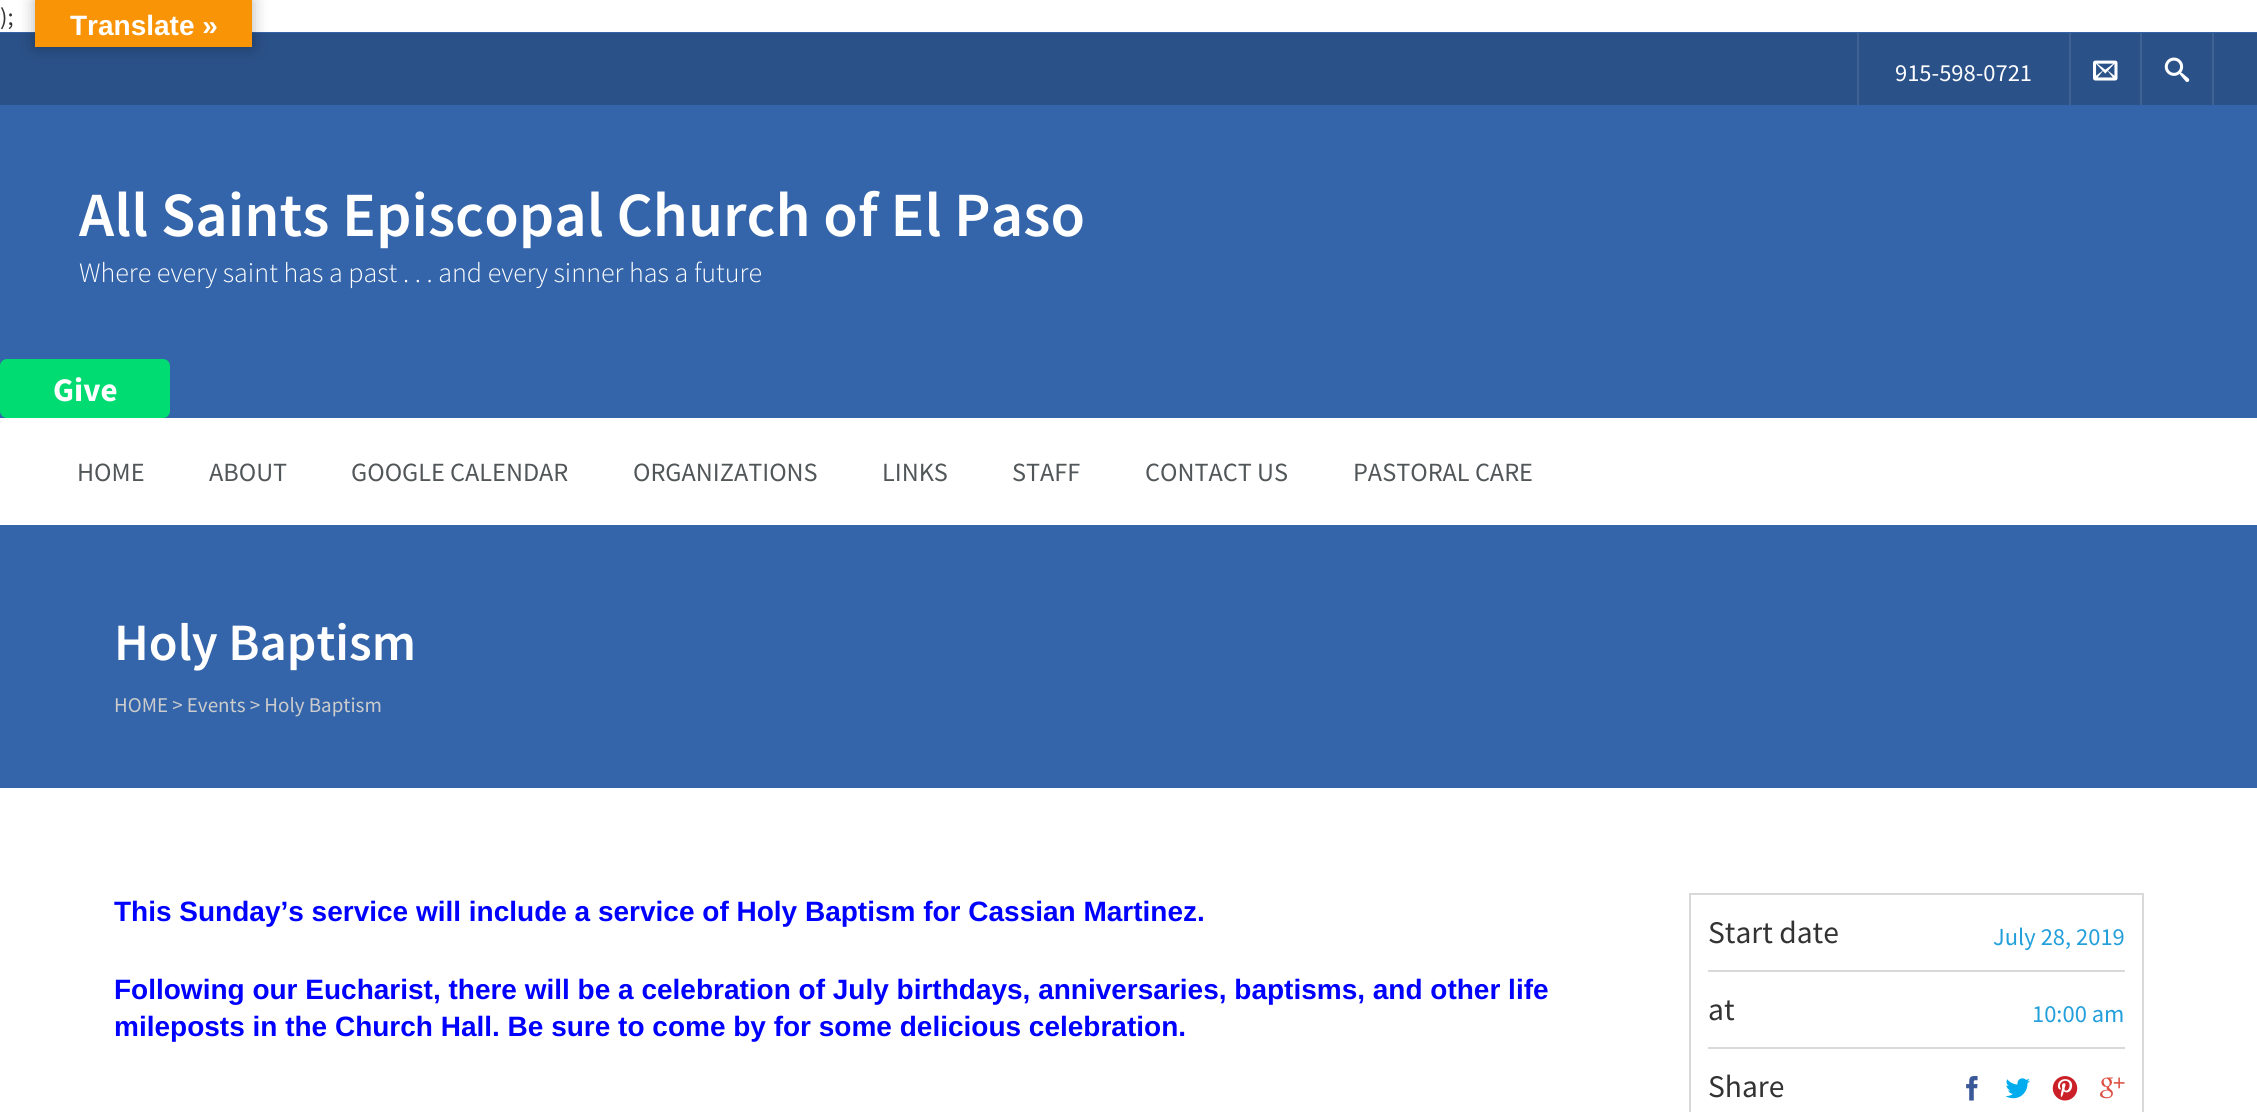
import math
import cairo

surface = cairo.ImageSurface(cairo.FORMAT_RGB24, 2257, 1112)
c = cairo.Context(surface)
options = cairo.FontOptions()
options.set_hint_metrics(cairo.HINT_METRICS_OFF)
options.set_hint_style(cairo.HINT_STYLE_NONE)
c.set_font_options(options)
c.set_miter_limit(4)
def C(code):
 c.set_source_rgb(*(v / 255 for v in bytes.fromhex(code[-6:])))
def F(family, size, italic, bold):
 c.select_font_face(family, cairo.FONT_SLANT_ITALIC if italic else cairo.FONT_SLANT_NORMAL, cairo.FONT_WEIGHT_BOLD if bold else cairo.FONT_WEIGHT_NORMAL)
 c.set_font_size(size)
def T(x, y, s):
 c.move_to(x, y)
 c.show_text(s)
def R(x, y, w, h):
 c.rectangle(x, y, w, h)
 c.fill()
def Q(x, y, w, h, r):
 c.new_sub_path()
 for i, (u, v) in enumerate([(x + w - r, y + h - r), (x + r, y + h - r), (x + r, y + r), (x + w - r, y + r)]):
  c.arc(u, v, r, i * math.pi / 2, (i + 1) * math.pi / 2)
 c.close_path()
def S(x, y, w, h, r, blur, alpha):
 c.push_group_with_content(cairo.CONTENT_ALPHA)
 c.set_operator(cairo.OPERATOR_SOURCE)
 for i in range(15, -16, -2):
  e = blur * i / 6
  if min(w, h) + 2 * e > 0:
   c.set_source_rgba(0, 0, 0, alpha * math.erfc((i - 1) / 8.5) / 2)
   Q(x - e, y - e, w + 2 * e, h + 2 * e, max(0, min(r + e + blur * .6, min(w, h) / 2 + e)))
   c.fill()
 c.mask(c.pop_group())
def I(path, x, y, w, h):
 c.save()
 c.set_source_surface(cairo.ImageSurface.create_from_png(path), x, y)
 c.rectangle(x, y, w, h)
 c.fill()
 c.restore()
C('ffffff')
c.paint()
F('Source Sans Pro',24.5,0,0)
C('333333')
T(0,25,');')
C('3465aa')
R(0,32,2257,756)
C('2a5188')
R(0,33,2257,72)
C('000000')
S(35,0,217,47,0,8,.3)
C('f89406')
R(35,0,217,47)
F('Liberation Sans',28,0,1)
C('ffffff')
T(70,35,'Translate »')
C('3f6294')
R(1857,33,2,72)
F('Source Sans Pro',24.5,0,0)
C('ffffff')
T(1895,81,'915-598-0721')
C('3f6294')
R(2069,33,2,72)
I('1.png',2093,60,25,21)
R(2212,33,2,72)
R(2140,33,2,72)
I('2.png',2164,57,26,25)
F('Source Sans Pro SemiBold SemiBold',63,0,0)
C('ffffff')
T(79,236,'All Saints Episcopal Church of El Paso')
F('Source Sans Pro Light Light',28,0,0)
T(79,282,'Where every saint has a past . . . and every sinner has a future')
C('00db72')
Q(0,359,170,59,7)
c.fill()
F('Source Sans Pro',33,0,1)
C('ffffff')
T(53,401,'Give')
R(0,418,2257,107)
F('Source Sans Pro',26.25,0,0)
C('515659')
T(77,481,'HOME')
T(209,481,'ABOUT')
T(351,481,'GOOGLE CALENDAR')
T(633,481,'ORGANIZATIONS')
T(882,481,'LINKS')
T(1012,481,'STAFF')
T(1145,481,'CONTACT US')
T(1353,481,'PASTORAL CARE')
F('Source Sans Pro SemiBold SemiBold',52.5,0,0)
C('ffffff')
T(114,660,'Holy Baptism')
F('Source Sans Pro',21,0,0)
C('cccccc')
T(114,712,'HOME > Events > Holy Baptism')
F('Liberation Sans',28,0,1)
C('0000ff')
T(114,921,'This Sunday’s service will include a service of Holy Baptism for Cassian Martinez.')
T(114,999,'Following our Eucharist, there will be a celebration of July birthdays, anniversaries, baptisms, and other life')
T(114,1036,'mileposts in the Church Hall. Be sure to come by for some delicious celebration.')
c.rectangle(1690,894,453,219)
C('d9d9d9')
c.stroke()
R(1708,970,417,2)
F('Source Sans Pro',31.5,0,0)
C('333333')
T(1708,943,'Start date')
F('Source Sans Pro',24.5,0,0)
C('239fdb')
T(1993,945,'July 28, 2019')
C('d9d9d9')
R(1708,1047,417,2)
F('Source Sans Pro',31.5,0,0)
C('333333')
T(1708,1020,'at')
F('Source Sans Pro',24.5,0,0)
C('239fdb')
T(2032,1022,'10:00 am')
F('Source Sans Pro',31.5,0,0)
C('333333')
T(1708,1097,'Share')
I('3.png',1966,1076,12,25)
I('4.png',2005,1078,25,21)
I('5.png',2052,1076,26,25)
I('6.png',2100,1077,25,22)
surface.write_to_png('o.png')
